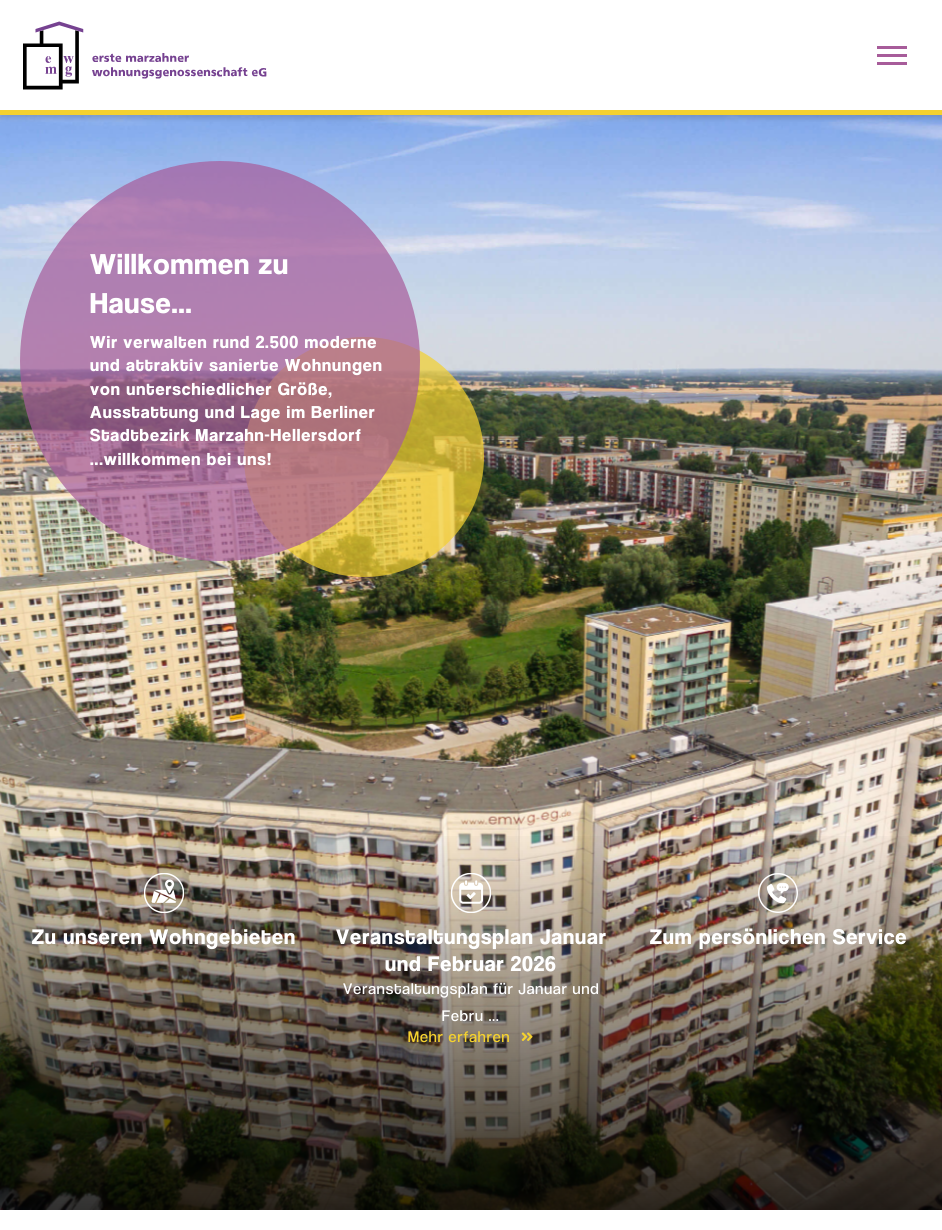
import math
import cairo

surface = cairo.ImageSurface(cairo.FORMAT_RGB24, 942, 1230)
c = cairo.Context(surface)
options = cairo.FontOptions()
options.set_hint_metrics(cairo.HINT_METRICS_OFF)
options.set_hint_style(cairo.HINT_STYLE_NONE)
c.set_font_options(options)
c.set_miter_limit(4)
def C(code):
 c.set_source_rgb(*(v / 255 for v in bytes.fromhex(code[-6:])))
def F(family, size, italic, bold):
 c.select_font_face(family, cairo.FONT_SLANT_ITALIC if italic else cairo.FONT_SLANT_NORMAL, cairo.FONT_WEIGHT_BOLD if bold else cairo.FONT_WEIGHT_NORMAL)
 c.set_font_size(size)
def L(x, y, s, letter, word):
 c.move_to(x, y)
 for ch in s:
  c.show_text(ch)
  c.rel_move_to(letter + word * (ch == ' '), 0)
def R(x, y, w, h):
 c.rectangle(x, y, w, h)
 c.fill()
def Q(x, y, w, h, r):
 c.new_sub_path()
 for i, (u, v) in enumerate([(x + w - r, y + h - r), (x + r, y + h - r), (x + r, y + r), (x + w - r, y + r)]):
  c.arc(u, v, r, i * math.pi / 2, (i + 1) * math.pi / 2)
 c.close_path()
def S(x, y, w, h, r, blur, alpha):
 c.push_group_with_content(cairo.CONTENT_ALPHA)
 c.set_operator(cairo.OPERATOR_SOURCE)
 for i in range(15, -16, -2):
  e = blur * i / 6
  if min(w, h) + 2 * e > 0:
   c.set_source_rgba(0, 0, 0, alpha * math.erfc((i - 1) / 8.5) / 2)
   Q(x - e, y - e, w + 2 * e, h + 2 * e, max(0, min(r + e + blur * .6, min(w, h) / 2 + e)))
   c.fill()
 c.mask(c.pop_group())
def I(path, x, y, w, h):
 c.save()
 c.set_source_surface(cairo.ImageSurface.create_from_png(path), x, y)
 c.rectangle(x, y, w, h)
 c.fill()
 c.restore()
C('ffffff')
c.paint()
I('2.png',0,115,942,1095)
C('000000')
S(0,3,942,115,0,3,.16)
C('ffffff')
R(0,0,942,110)
C('f4d12f')
R(0,110,942,5)
I('1.png',23,21,244,69)
C('a75c9a')
R(877,46,30,3)
R(877,54,30,3)
R(877,62,30,3)
I('3.png',0,369,942,841)
c.set_source_rgba(0.957,0.82,0.184,0.7)
c.arc(364,457,120,0,2 * math.pi)
c.fill()
c.set_source_rgba(0.655,0.361,0.604,0.7)
c.arc(220,361,200,0,2 * math.pi)
c.fill()
F('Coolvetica',30,0,1)
C('ffffff')
L(90,274,'Willkommen zu',1,0)
L(90,313,'Hause...',1,0)
F('Coolvetica',18,0,1)
L(90,348,'Wir verwalten rund 2.500 moderne',1,0)
L(90,371,'und attraktiv sanierte Wohnungen',1,0)
L(90,395,'von unterschiedlicher Größe,',1,0)
L(90,418,'Ausstattung und Lage im Berliner',1,0)
L(90,441,'Stadtbezirk Marzahn-Hellersdorf',1,0)
L(90,465,'...willkommen bei uns!',1,0)
gradient = cairo.LinearGradient(471,826,471,1211)
gradient.add_color_stop_rgba(0,0,0,0,0)
gradient.add_color_stop_rgba(1,0,0,0,.8)
c.set_source(gradient)
R(0,836,942,374)
I('4.png',144,873,40,40)
F('Coolvetica',22,0,1)
C('ffffff')
L(32,944,'Zu unseren Wohngebieten',1,0)
I('5.png',451,873,40,40)
L(336,944,'Veranstaltungsplan Januar',1,0)
L(385,971,'und Februar 2026',1,0)
F('Coolvetica',16,0,0)
L(343,994,'Veranstaltungsplan für Januar und',1,0)
L(442,1021,'Febru ...',1,0)
C('f4d12f')
L(408,1042,'Mehr erfahren',1,0)
I('6.png',521,1032,12,9)
I('7.png',758,873,40,40)
F('Coolvetica',22,0,1)
C('ffffff')
L(650,944,'Zum persönlichen Service',1,0)
surface.write_to_png('o.png')
